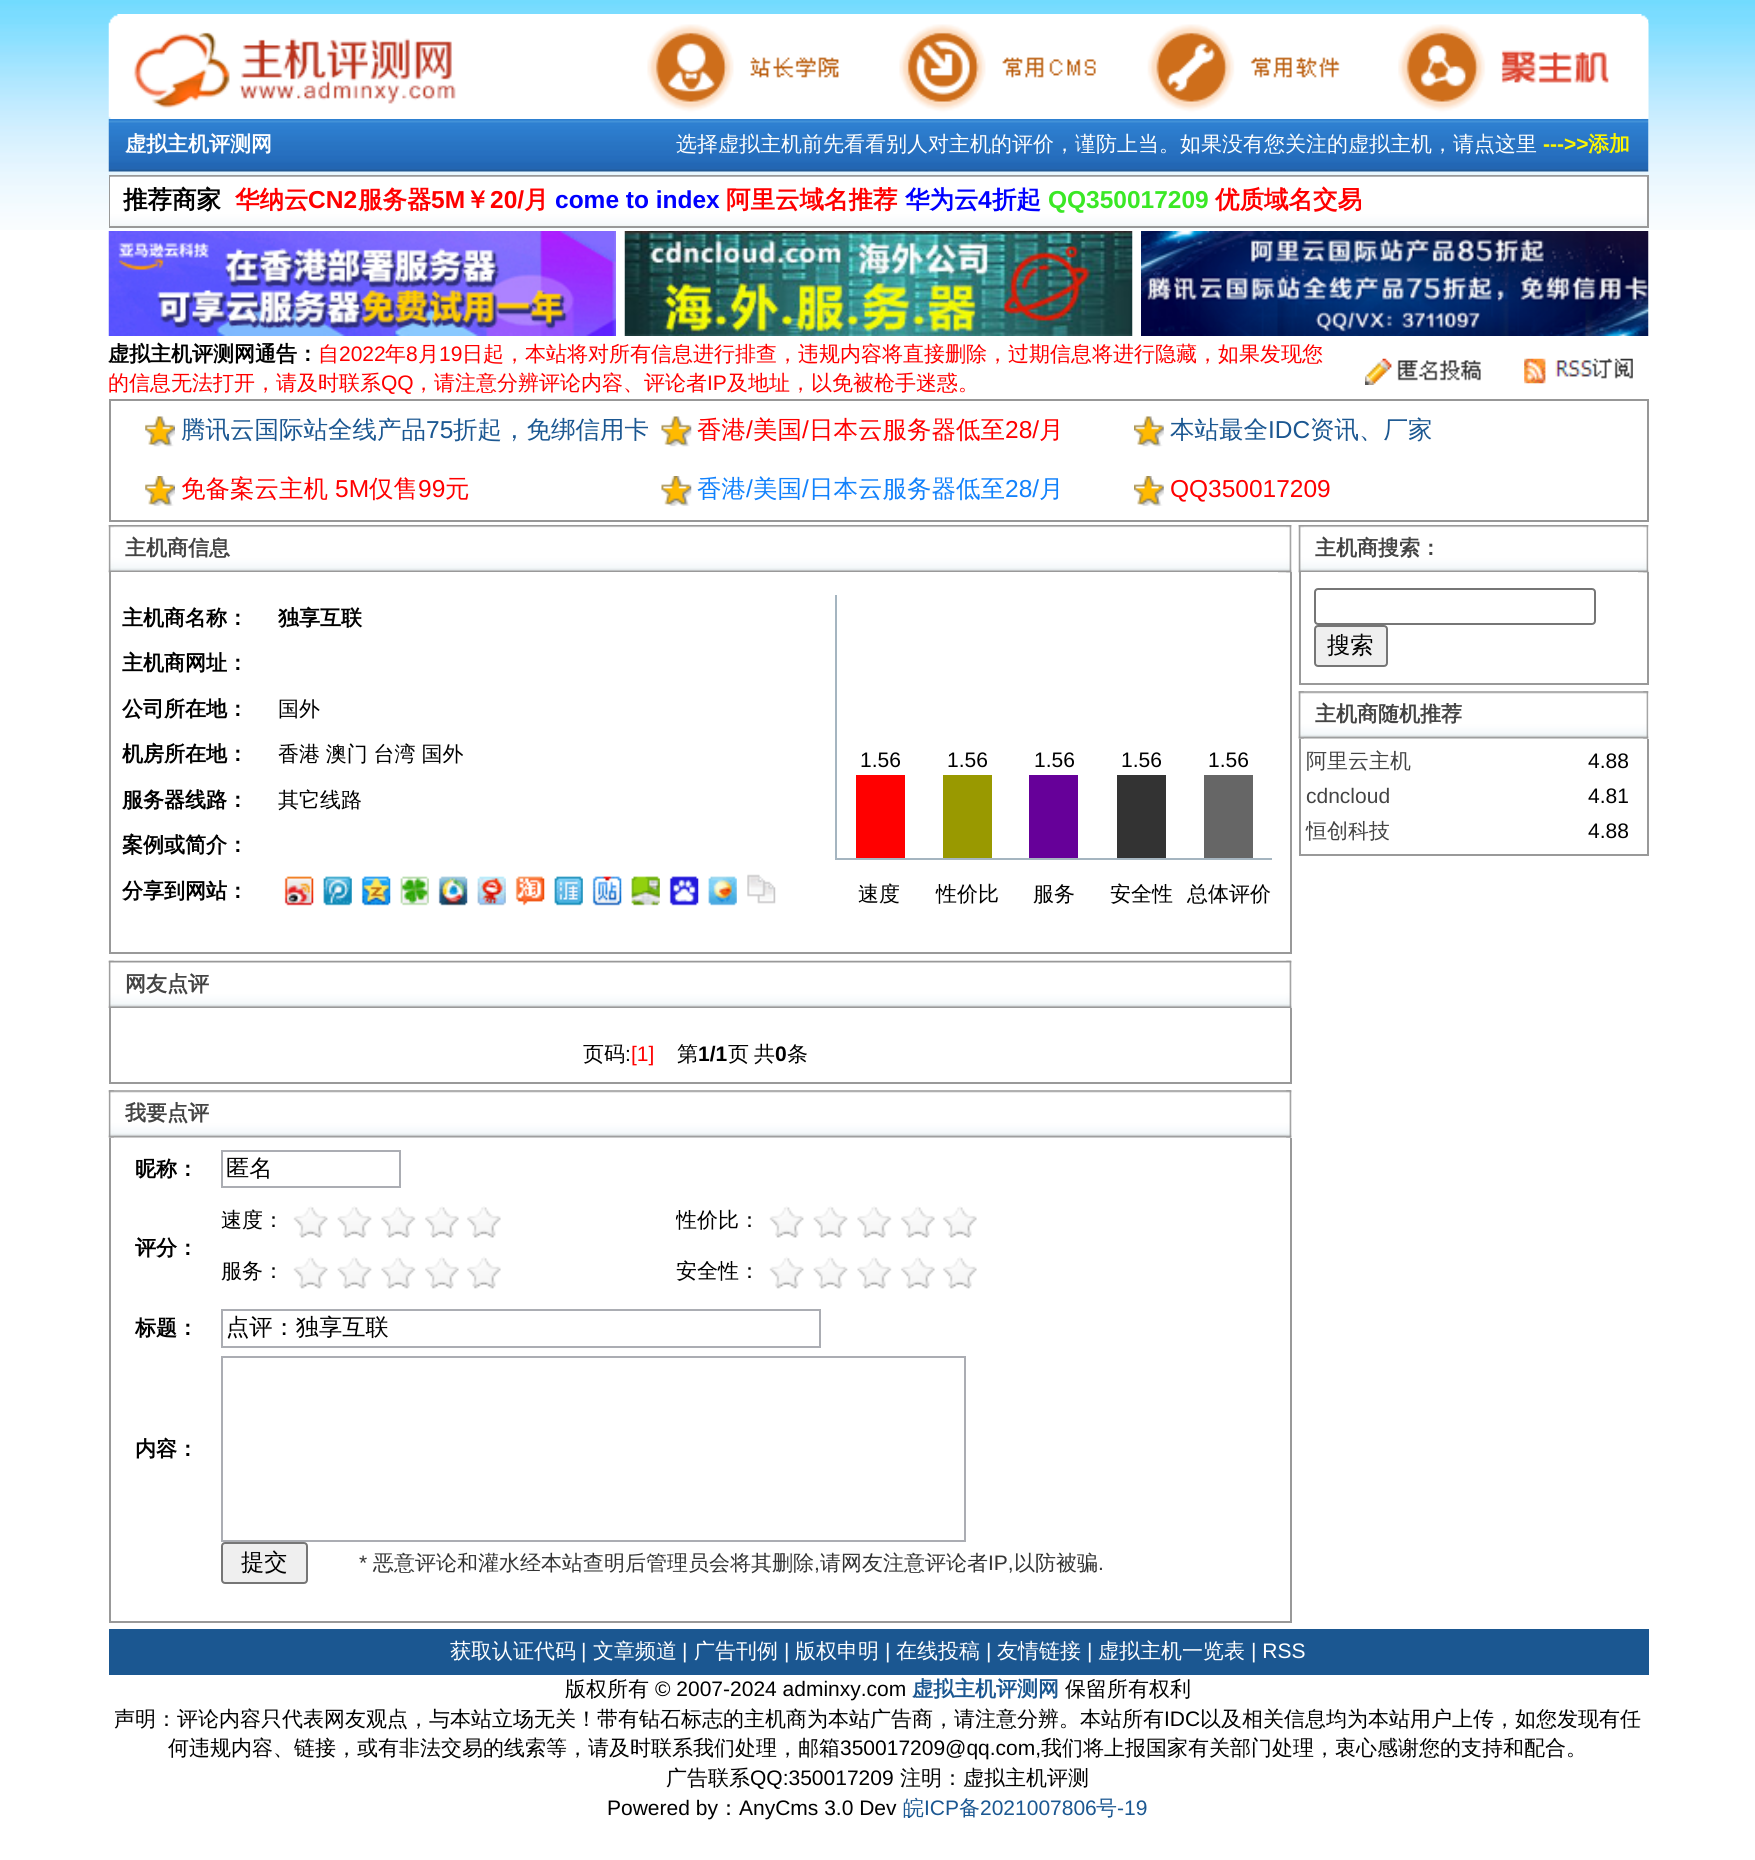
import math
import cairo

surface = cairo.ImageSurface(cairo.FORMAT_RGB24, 1755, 1860)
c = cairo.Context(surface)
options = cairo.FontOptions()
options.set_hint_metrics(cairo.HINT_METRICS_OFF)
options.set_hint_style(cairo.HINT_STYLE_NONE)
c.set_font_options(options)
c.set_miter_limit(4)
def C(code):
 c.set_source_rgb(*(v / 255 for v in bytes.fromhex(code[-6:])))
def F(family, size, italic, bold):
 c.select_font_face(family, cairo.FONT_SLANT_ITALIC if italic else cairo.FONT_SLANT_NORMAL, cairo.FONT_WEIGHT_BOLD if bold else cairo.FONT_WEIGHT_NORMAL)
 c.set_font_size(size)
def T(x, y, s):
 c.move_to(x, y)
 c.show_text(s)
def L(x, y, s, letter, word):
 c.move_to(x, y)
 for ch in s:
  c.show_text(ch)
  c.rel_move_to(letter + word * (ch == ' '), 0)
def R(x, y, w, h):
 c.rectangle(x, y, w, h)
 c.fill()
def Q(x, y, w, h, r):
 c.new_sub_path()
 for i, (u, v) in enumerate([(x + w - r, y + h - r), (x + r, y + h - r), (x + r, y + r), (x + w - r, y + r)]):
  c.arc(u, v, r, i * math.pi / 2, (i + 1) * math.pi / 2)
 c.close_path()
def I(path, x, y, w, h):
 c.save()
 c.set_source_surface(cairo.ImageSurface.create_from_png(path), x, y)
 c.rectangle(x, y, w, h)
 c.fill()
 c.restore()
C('ffffff')
c.paint()
I('1.png',0,0,1755,230)
I('2.png',108,14,480,105)
I('3.png',588,14,266,105)
I('4.png',854,14,266,105)
I('5.png',1120,14,266,105)
I('6.png',1386,14,263,105)
I('7.png',108,119,1541,53)
F('WenQuanYi Zen Hei',21,0,1)
C('ffffff')
T(125,151,'虚拟主机评测网')
F('WenQuanYi Zen Hei Medium',21,0,0)
T(676,151,'选择虚拟主机前先看看别人对主机的评价，谨防上当。如果没有您关注的虚拟主机，请点这里')
F('Liberation Sans',21,0,1)
C('fef600')
T(1543,151,'--->>')
F('WenQuanYi Zen Hei',21,0,1)
T(1588,151,'添加')
C('999999')
R(109,175,1540,53)
C('ffffff')
R(110,177,1537,49)
I('8.png',110,176,1537,50)
F('WenQuanYi Zen Hei',24.5,0,1)
C('000000')
T(123,208,'推荐商家')
C('ff0000')
T(235,208,'华纳云')
F('Liberation Sans',24.5,0,1)
T(308,208,'CN2')
F('WenQuanYi Zen Hei',24.5,0,1)
T(358,208,'服务器')
F('Liberation Sans',24.5,0,1)
T(431,208,'5M')
F('WenQuanYi Zen Hei',24.5,0,1)
T(465,208,'￥')
F('Liberation Sans',24.5,0,1)
T(490,208,'20/')
F('WenQuanYi Zen Hei',24.5,0,1)
T(524,208,'月')
F('Liberation Sans',24.5,0,1)
C('0000ff')
T(555,208,'come to index')
F('WenQuanYi Zen Hei',24.5,0,1)
C('ff0000')
T(726,208,'阿里云域名推荐')
C('0000ff')
T(905,208,'华为云')
F('Liberation Sans',24.5,0,1)
T(978,208,'4')
F('WenQuanYi Zen Hei',24.5,0,1)
T(992,208,'折起')
F('Liberation Sans',24.5,0,1)
C('3ae825')
T(1048,208,'QQ350017209')
F('WenQuanYi Zen Hei',24.5,0,1)
C('ff0000')
T(1215,208,'优质域名交易')
I('9.png',108,231,508,105)
I('10.png',624,231,509,105)
I('11.png',1141,231,508,105)
F('WenQuanYi Zen Hei',21,0,1)
C('000000')
T(108,361,'虚拟主机评测网通告：')
F('WenQuanYi Zen Hei Medium',21,0,0)
C('ff0000')
T(318,361,'自')
F('Liberation Sans',21,0,0)
T(339,361,'2022')
F('WenQuanYi Zen Hei Medium',21,0,0)
T(385,361,'年')
F('Liberation Sans',21,0,0)
T(406,361,'8')
F('WenQuanYi Zen Hei Medium',21,0,0)
T(418,361,'月')
F('Liberation Sans',21,0,0)
T(439,361,'19')
F('WenQuanYi Zen Hei Medium',21,0,0)
T(462,361,'日起，本站将对所有信息进行排查，违规内容将直接删除，过期信息将进行隐藏，如果发现您')
T(108,390,'的信息无法打开，请及时联系')
F('Liberation Sans',21,0,0)
T(381,390,'QQ')
F('WenQuanYi Zen Hei Medium',21,0,0)
T(413,390,'，请注意分辨评论内容、评论者')
F('Liberation Sans',21,0,0)
T(707,390,'IP')
F('WenQuanYi Zen Hei Medium',21,0,0)
T(727,390,'及地址，以免被枪手迷惑。')
I('12.png',1365,358,116,27)
I('13.png',1524,358,109,26)
c.rectangle(110,400,1538,121)
C('979797')
c.stroke()
I('14.png',145,416,30,31)
F('WenQuanYi Zen Hei Medium',24.5,0,0)
C('1b5791')
T(181,438,'腾讯云国际站全线产品')
F('Liberation Sans',24.5,0,0)
T(426,438,'75')
F('WenQuanYi Zen Hei Medium',24.5,0,0)
T(453,438,'折起，免绑信用卡')
I('15.png',661,416,31,31)
C('ff0000')
T(697,438,'香港')
F('Liberation Sans',24.5,0,0)
T(746,438,'/')
F('WenQuanYi Zen Hei Medium',24.5,0,0)
T(753,438,'美国')
F('Liberation Sans',24.5,0,0)
T(802,438,'/')
F('WenQuanYi Zen Hei Medium',24.5,0,0)
T(809,438,'日本云服务器低至')
F('Liberation Sans',24.5,0,0)
T(1005,438,'28/')
F('WenQuanYi Zen Hei Medium',24.5,0,0)
T(1039,438,'月')
I('16.png',1134,416,30,31)
C('1b5791')
T(1170,438,'本站最全')
F('Liberation Sans',24.5,0,0)
T(1268,438,'IDC')
F('WenQuanYi Zen Hei Medium',24.5,0,0)
T(1310,438,'资讯、厂家')
I('17.png',145,476,30,30)
C('ff0000')
T(181,497,'免备案云主机')
F('Liberation Sans',24.5,0,0)
T(335,497,'5M')
F('WenQuanYi Zen Hei Medium',24.5,0,0)
T(369,497,'仅售')
F('Liberation Sans',24.5,0,0)
T(418,497,'99')
F('WenQuanYi Zen Hei Medium',24.5,0,0)
T(445,497,'元')
I('18.png',661,476,31,30)
C('1181fc')
T(697,497,'香港')
F('Liberation Sans',24.5,0,0)
T(746,497,'/')
F('WenQuanYi Zen Hei Medium',24.5,0,0)
T(753,497,'美国')
F('Liberation Sans',24.5,0,0)
T(802,497,'/')
F('WenQuanYi Zen Hei Medium',24.5,0,0)
T(809,497,'日本云服务器低至')
F('Liberation Sans',24.5,0,0)
T(1005,497,'28/')
F('WenQuanYi Zen Hei Medium',24.5,0,0)
T(1039,497,'月')
I('19.png',1134,476,30,30)
F('Liberation Sans',24.5,0,0)
C('ff0000')
T(1170,497,'QQ350017209')
I('21.png',108,525,1184,48)
I('20.png',108,525,6,48)
F('WenQuanYi Zen Hei',21,0,1)
C('444444')
T(125,555,'主机商信息')
I('22.png',1286,525,6,48)
C('999999')
R(109,572,2,380)
C('ffffff')
R(111,572,1167,1)
C('000000')
T(122,625,'主机商名称：')
T(278,625,'独享互联')
T(122,670,'主机商网址：')
T(122,716,'公司所在地：')
F('WenQuanYi Zen Hei Medium',21,0,0)
T(278,716,'国外')
F('WenQuanYi Zen Hei',21,0,1)
T(122,761,'机房所在地：')
F('WenQuanYi Zen Hei Medium',21,0,0)
L(278,761,'香港 澳门 台湾 国外',0,-.5)
F('WenQuanYi Zen Hei',21,0,1)
T(122,807,'服务器线路：')
F('WenQuanYi Zen Hei Medium',21,0,0)
T(278,807,'其它线路')
F('WenQuanYi Zen Hei',21,0,1)
T(122,852,'案例或简介：')
T(122,898,'分享到网站：')
I('23.png',284,876,30,30)
I('24.png',323,876,29,30)
I('25.png',361,876,30,30)
I('26.png',400,876,29,30)
I('27.png',438,876,30,30)
I('28.png',477,876,29,30)
I('29.png',515,876,30,30)
I('30.png',554,876,29,30)
I('31.png',592,876,30,30)
I('32.png',631,876,29,30)
I('33.png',669,876,30,30)
I('34.png',708,876,29,30)
I('35.png',747,874,29,30)
C('a5b5c0')
R(835,858,437,2)
R(835,595,2,264)
F('Liberation Sans',21,0,0)
C('000000')
T(860,767,'1.56')
C('ff0000')
R(856,775,49,83)
C('000000')
T(947,767,'1.56')
C('999900')
R(943,775,49,83)
C('000000')
T(1034,767,'1.56')
C('660099')
R(1029,775,49,83)
C('000000')
T(1121,767,'1.56')
C('333333')
R(1117,775,49,83)
C('000000')
T(1208,767,'1.56')
C('666666')
R(1204,775,49,83)
F('WenQuanYi Zen Hei Medium',21,0,0)
C('000000')
T(858,901,'速度')
T(936,901,'性价比')
T(1033,901,'服务')
T(1110,901,'安全性')
T(1187,901,'总体评价')
C('999999')
R(1290,572,2,380)
R(109,952,1183,2)
I('37.png',108,960,1184,48)
I('36.png',108,960,6,48)
F('WenQuanYi Zen Hei',21,0,1)
C('444444')
T(125,991,'网友点评')
I('38.png',1286,960,6,48)
C('999999')
R(109,1008,2,74)
F('WenQuanYi Zen Hei Medium',21,0,0)
C('000000')
T(583,1061,'页码')
F('Liberation Sans',21,0,0)
T(625,1061,':')
C('ff0000')
T(631,1061,'[1]')
F('WenQuanYi Zen Hei Medium',21,0,0)
C('000000')
T(677,1061,'第')
F('Liberation Sans',21,0,1)
T(698,1061,'1/1')
F('WenQuanYi Zen Hei Medium',21,0,0)
T(728,1061,'页')
T(754,1061,'共')
F('Liberation Sans',21,0,1)
T(775,1061,'0')
F('WenQuanYi Zen Hei Medium',21,0,0)
T(787,1061,'条')
C('999999')
R(1290,1008,2,74)
R(109,1082,1183,2)
I('40.png',108,1090,1184,48)
I('39.png',108,1090,6,48)
F('WenQuanYi Zen Hei',21,0,1)
C('444444')
T(125,1120,'我要点评')
I('41.png',1286,1090,6,48)
C('999999')
R(109,1138,2,483)
C('000000')
T(135,1176,'昵称：')
c.rectangle(222,1151,178,36)
C('abadb3')
c.stroke()
F('WenQuanYi Zen Hei Medium',23.25,0,0)
C('000000')
T(226,1176,'匿名')
F('WenQuanYi Zen Hei',21,0,1)
T(135,1255,'评分：')
F('WenQuanYi Zen Hei Medium',21,0,0)
T(221,1227,'速度：')
I('42.png',293,1206,208,32)
c.save()
c.rectangle(676,1197,455,51)
c.clip()
T(676,1227,'性价比：')
c.restore()
I('42.png',769,1206,208,32)
T(221,1278,'服务：')
I('43.png',293,1256,208,33)
T(676,1278,'安全性：')
I('43.png',769,1256,208,33)
F('WenQuanYi Zen Hei',21,0,1)
T(135,1335,'标题：')
c.rectangle(222,1310,598,37)
C('abadb3')
c.stroke()
F('WenQuanYi Zen Hei Medium',23.25,0,0)
C('000000')
T(226,1335,'点评：独享互联')
F('WenQuanYi Zen Hei',21,0,1)
T(135,1456,'内容：')
c.rectangle(222,1357,743,184)
C('abadb3')
c.stroke()
C('efefef')
Q(222,1543,85,40,3)
c.fill_preserve()
C('767676')
c.stroke()
F('WenQuanYi Zen Hei Medium',23.25,0,0)
C('000000')
T(241,1570,'提交')
F('Liberation Sans',21,0,0)
C('333333')
T(359,1570,'*')
F('WenQuanYi Zen Hei Medium',21,0,0)
T(373,1570,'恶意评论和灌水经本站查明后管理员会将其删除')
F('Liberation Sans',21,0,0)
T(814,1570,',')
F('WenQuanYi Zen Hei Medium',21,0,0)
T(820,1570,'请网友注意评论者')
F('Liberation Sans',21,0,0)
T(988,1570,'IP,')
F('WenQuanYi Zen Hei Medium',21,0,0)
T(1014,1570,'以防被骗')
F('Liberation Sans',21,0,0)
T(1098,1570,'.')
C('999999')
R(1290,1138,2,483)
R(109,1621,1183,2)
I('45.png',1298,525,351,48)
I('44.png',1298,525,6,48)
F('WenQuanYi Zen Hei',21,0,1)
C('444444')
T(1315,555,'主机商搜索：')
I('46.png',1643,525,6,48)
C('999999')
R(1299,572,2,111)
C('ffffff')
R(1301,572,337,1)
Q(1315,589,280,35,3)
C('767676')
c.stroke()
C('efefef')
Q(1315,626,72,40,3)
c.fill_preserve()
C('767676')
c.stroke()
F('WenQuanYi Zen Hei Medium',23.25,0,0)
C('000000')
T(1327,653,'搜索')
C('999999')
R(1647,572,2,111)
R(1299,683,350,2)
I('48.png',1298,691,351,48)
I('47.png',1298,691,6,48)
F('WenQuanYi Zen Hei',21,0,1)
C('444444')
T(1315,721,'主机商随机推荐')
I('49.png',1643,691,6,48)
C('999999')
R(1299,739,2,115)
F('WenQuanYi Zen Hei Medium',21,0,0)
C('444444')
T(1306,768,'阿里云主机')
F('Liberation Sans',21,0,0)
C('000000')
T(1588,768,'4.88')
C('444444')
T(1306,803,'cdncloud')
C('000000')
T(1588,803,'4.81')
F('WenQuanYi Zen Hei Medium',21,0,0)
C('444444')
T(1306,838,'恒创科技')
F('Liberation Sans',21,0,0)
C('000000')
T(1588,838,'4.88')
C('999999')
R(1647,739,2,115)
R(1299,854,350,2)
C('1b5791')
R(109,1629,1540,46)
F('WenQuanYi Zen Hei Medium',21,0,0)
C('ffffff')
T(450,1658,'获取认证代码')
F('Liberation Sans',21,0,0)
T(581,1658,'|')
F('WenQuanYi Zen Hei Medium',21,0,0)
T(593,1658,'文章频道')
F('Liberation Sans',21,0,0)
T(682,1658,'|')
F('WenQuanYi Zen Hei Medium',21,0,0)
T(694,1658,'广告刊例')
F('Liberation Sans',21,0,0)
T(784,1658,'|')
F('WenQuanYi Zen Hei Medium',21,0,0)
T(795,1658,'版权申明')
F('Liberation Sans',21,0,0)
T(885,1658,'|')
F('WenQuanYi Zen Hei Medium',21,0,0)
T(896,1658,'在线投稿')
F('Liberation Sans',21,0,0)
T(986,1658,'|')
F('WenQuanYi Zen Hei Medium',21,0,0)
T(997,1658,'友情链接')
F('Liberation Sans',21,0,0)
T(1087,1658,'|')
F('WenQuanYi Zen Hei Medium',21,0,0)
T(1098,1658,'虚拟主机一览表')
F('Liberation Sans',21,0,0)
T(1251,1658,'| RSS')
F('WenQuanYi Zen Hei Medium',21,0,0)
C('000000')
T(565,1696,'版权所有')
F('Liberation Sans',21,0,0)
T(655,1696,'© 2007-2024 adminxy.com')
F('WenQuanYi Zen Hei',21,0,1)
C('1b5791')
T(912,1696,'虚拟主机评测网')
F('WenQuanYi Zen Hei Medium',21,0,0)
C('000000')
T(1065,1696,'保留所有权利')
T(114,1726,'声明：评论内容只代表网友观点，与本站立场无关！带有钻石标志的主机商为本站广告商，请注意分辨。本站所有')
F('Liberation Sans',21,0,0)
T(1164,1726,'IDC')
F('WenQuanYi Zen Hei Medium',21,0,0)
T(1200,1726,'以及相关信息均为本站用户上传，如您发现有任')
T(168,1755,'何违规内容、链接，或有非法交易的线索等，请及时联系我们处理，邮箱')
F('Liberation Sans',21,0,0)
T(840,1755,'350017209@qq.com,')
F('WenQuanYi Zen Hei Medium',21,0,0)
T(1041,1755,'我们将上报国家有关部门处理，衷心感谢您的支持和配合。')
T(666,1785,'广告联系')
F('Liberation Sans',21,0,0)
T(750,1785,'QQ:350017209')
F('WenQuanYi Zen Hei Medium',21,0,0)
T(900,1785,'注明：虚拟主机评测')
F('Liberation Sans',21,0,0)
T(607,1815,'Powered by')
F('WenQuanYi Zen Hei Medium',21,0,0)
T(718,1815,'：')
F('Liberation Sans',21,0,0)
T(739,1815,'AnyCms 3.0 Dev')
F('WenQuanYi Zen Hei Medium',21,0,0)
C('1b5791')
T(903,1815,'皖')
F('Liberation Sans',21,0,0)
T(924,1815,'ICP')
F('WenQuanYi Zen Hei Medium',21,0,0)
T(959,1815,'备')
F('Liberation Sans',21,0,0)
T(980,1815,'2021007806')
F('WenQuanYi Zen Hei Medium',21,0,0)
T(1096,1815,'号')
F('Liberation Sans',21,0,0)
T(1117,1815,'-19')
surface.write_to_png('o.png')
